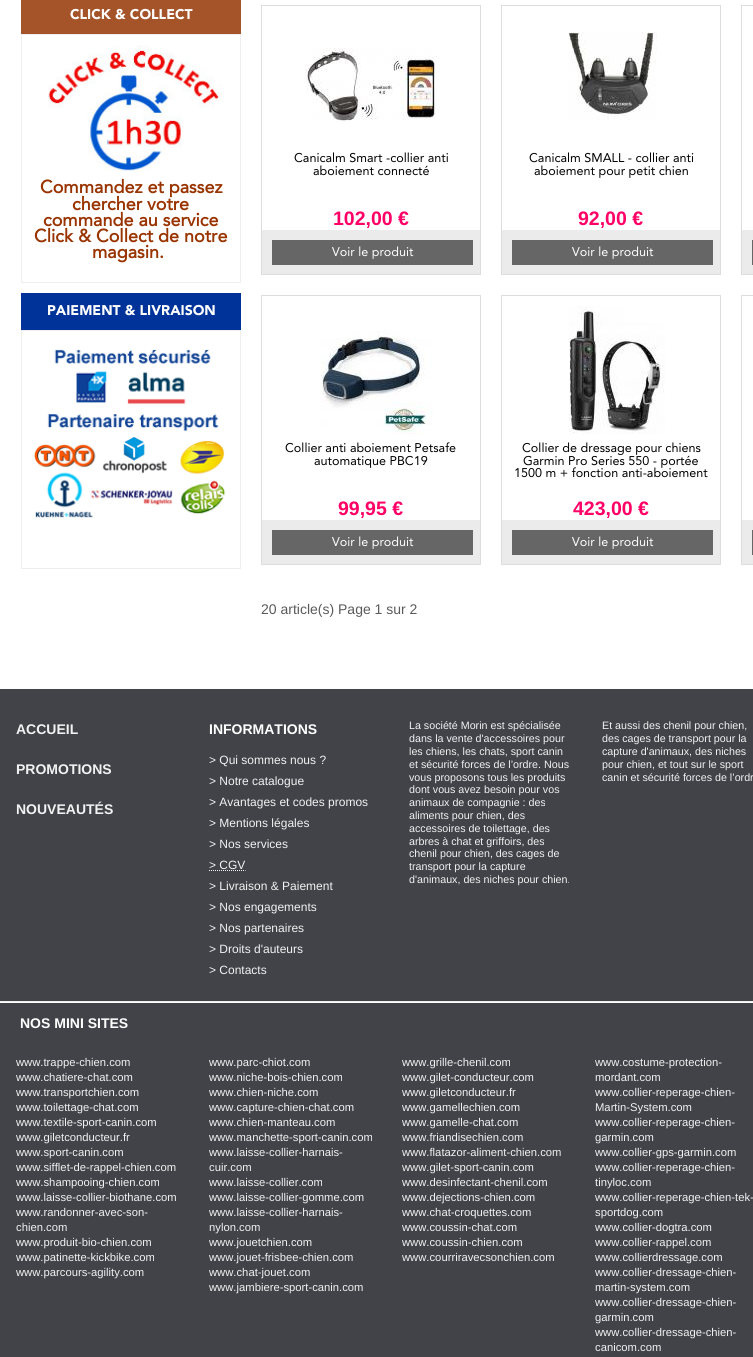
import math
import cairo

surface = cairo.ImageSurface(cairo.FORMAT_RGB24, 753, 1357)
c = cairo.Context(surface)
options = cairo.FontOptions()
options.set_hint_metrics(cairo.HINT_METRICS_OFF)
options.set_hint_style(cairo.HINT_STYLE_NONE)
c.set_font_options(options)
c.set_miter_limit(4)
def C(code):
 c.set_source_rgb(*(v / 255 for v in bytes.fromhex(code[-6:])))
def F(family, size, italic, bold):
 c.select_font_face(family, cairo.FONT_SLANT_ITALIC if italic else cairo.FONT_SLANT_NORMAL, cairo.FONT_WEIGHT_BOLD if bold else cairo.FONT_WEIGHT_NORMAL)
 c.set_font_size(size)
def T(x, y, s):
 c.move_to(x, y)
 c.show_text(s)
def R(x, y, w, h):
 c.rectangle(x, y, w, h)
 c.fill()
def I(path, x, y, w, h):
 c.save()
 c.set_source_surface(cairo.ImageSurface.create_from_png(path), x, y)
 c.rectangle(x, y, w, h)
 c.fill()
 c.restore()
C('ffffff')
c.paint()
C('a55429')
R(21,0,220,34)
F('Avenir Black',14,0,0)
C('ffffff')
T(70,19,'CLICK & COLLECT')
c.rectangle(21.5,34.5,219,248)
C('eeeeee')
c.set_line_width(1)
c.stroke()
I('1.png',48,45,174,126)
F('Avenir',18,0,1)
C('993300')
T(40,193,'Commandez et passez')
T(72,210,'chercher votre')
T(43,226,'commande au service')
T(34,242,'Click & Collect de notre')
T(92,258,'magasin.')
C('003399')
R(21,293,220,37)
F('Avenir Black',14,0,0)
C('ffffff')
T(47,315,'PAIEMENT & LIVRAISON')
c.rectangle(21.5,330.5,219,238)
C('eeeeee')
c.stroke()
I('2.png',34,349,192,169)
c.rectangle(261.5,5.5,219,269)
C('dddddd')
c.stroke()
I('3.png',305,48,132,74)
F('Avenir',12.6,0,0)
C('000000')
T(294,162,'Canicalm Smart -collier anti')
T(313,175,'aboiement connecté')
F('Liberation Sans',19.5,0,1)
C('ff0066')
T(333,225,'102,00 €')
C('ebebeb')
R(262,230,218,44)
C('666666')
R(272,240,201,25)
F('Avenir',12.6,0,0)
C('ffffff')
T(332,256,'Voir le produit')
c.rectangle(501.5,5.5,219,269)
C('dddddd')
c.stroke()
I('4.png',569,32,88,88)
C('000000')
T(529,162,'Canicalm SMALL - collier anti')
T(534,175,'aboiement pour petit chien')
F('Liberation Sans',19.5,0,1)
C('ff0066')
T(578,225,'92,00 €')
C('ebebeb')
R(502,230,218,44)
C('666666')
R(512,240,201,25)
F('Avenir',12.6,0,0)
C('ffffff')
T(572,256,'Voir le produit')
c.rectangle(741.5,5.5,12,269)
C('dddddd')
c.stroke()
C('ebebeb')
R(742,230,11,44)
C('666666')
R(752,240,1,25)
c.rectangle(261.5,295.5,219,269)
C('dddddd')
c.stroke()
I('5.png',321,330,112,104)
C('000000')
T(285,452,'Collier anti aboiement Petsafe')
T(314,465,'automatique PBC19')
F('Liberation Sans',19.5,0,1)
C('ff0066')
T(338,515,'99,95 €')
C('ebebeb')
R(262,520,218,44)
C('666666')
R(272,530,201,25)
F('Avenir',12.6,0,0)
C('ffffff')
T(332,546,'Voir le produit')
c.rectangle(501.5,295.5,219,269)
C('dddddd')
c.stroke()
I('6.png',569,306,96,128)
C('000000')
T(522,452,'Collier de dressage pour chiens')
T(523,465,'Garmin Pro Series 550 - portée')
T(514,477,'1500 m + fonction anti-aboiement')
F('Liberation Sans',19.5,0,1)
C('ff0066')
T(573,515,'423,00 €')
C('ebebeb')
R(502,520,218,44)
C('666666')
R(512,530,201,25)
F('Avenir',12.6,0,0)
C('ffffff')
T(572,546,'Voir le produit')
c.rectangle(741.5,295.5,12,269)
C('dddddd')
c.stroke()
C('ebebeb')
R(742,520,11,44)
C('666666')
R(752,530,1,25)
F('Liberation Sans',14,0,0)
C('5a5a5a')
T(261,614,'20 article(s) Page 1 sur 2')
C('424349')
R(0,689,753,668)
F('Liberation Sans',14,0,1)
C('f2f2f2')
T(16,734,'ACCUEIL')
T(16,774,'PROMOTIONS')
T(16,814,'NOUVEAUTÉS')
C('ffffff')
T(209,734,'INFORMATIONS')
F('Liberation Sans',12,0,0)
C('f2f2f2')
T(209,764,'> Qui sommes nous ?')
T(209,785,'> Notre catalogue')
T(209,806,'> Avantages et codes promos')
T(209,827,'> Mentions légales')
T(209,848,'> Nos services')
T(209,869,'> CGV')
c.new_path()
c.move_to(209,870.5)
c.line_to(245.5,870.5)
c.set_dash([1,1])
c.stroke()
T(209,890,'> Livraison & Paiement')
T(209,911,'> Nos engagements')
T(209,932,'> Nos partenaires')
T(209,953,'> Droits d\'auteurs')
T(209,974,'> Contacts')
F('Liberation Sans',10.7,0,0)
T(409,729,'La société Morin est spécialisée')
T(409,742,'dans la vente d\'accessoires pour')
T(409,755,'les chiens, les chats, sport canin')
T(409,768,'et sécurité forces de l’ordre. Nous')
T(409,781,'vous proposons tous les produits')
T(409,793,'dont vous avez besoin pour vos')
T(409,806,'animaux de compagnie : des')
T(409,819,'aliments pour chien, des')
T(409,832,'accessoires de toilettage, des')
T(409,845,'arbres à chat et griffoirs, des')
T(409,857,'chenil pour chien, des cages de')
T(409,870,'transport pour la capture')
T(409,883,'d\'animaux, des niches pour chien.')
T(602,729,'Et aussi des chenil pour chien,')
T(602,742,'des cages de transport pour la')
T(602,755,'capture d\'animaux, des niches')
T(602,768,'pour chien, et tout sur le sport')
T(602,781,'canin et sécurité forces de l’ordr')
C('eeeeee')
R(0,1001,753,1)
C('ffffff')
R(0,1002,753,1)
F('Liberation Sans',14,0,1)
T(20,1028,'NOS MINI SITES')
F('Liberation Sans',11.25,0,0)
C('f2f2f2')
T(16,1066,'www.trappe-chien.com')
T(16,1081,'www.chatiere-chat.com')
T(16,1096,'www.transportchien.com')
T(16,1111,'www.toilettage-chat.com')
T(16,1126,'www.textile-sport-canin.com')
T(16,1141,'www.giletconducteur.fr')
T(16,1156,'www.sport-canin.com')
T(16,1171,'www.sifflet-de-rappel-chien.com')
T(16,1186,'www.shampooing-chien.com')
T(16,1201,'www.laisse-collier-biothane.com')
T(16,1216,'www.randonner-avec-son-')
T(16,1231,'chien.com')
T(16,1246,'www.produit-bio-chien.com')
T(16,1261,'www.patinette-kickbike.com')
T(16,1276,'www.parcours-agility.com')
T(209,1066,'www.parc-chiot.com')
T(209,1081,'www.niche-bois-chien.com')
T(209,1096,'www.chien-niche.com')
T(209,1111,'www.capture-chien-chat.com')
T(209,1126,'www.chien-manteau.com')
T(209,1141,'www.manchette-sport-canin.com')
T(209,1156,'www.laisse-collier-harnais-')
T(209,1171,'cuir.com')
T(209,1186,'www.laisse-collier.com')
T(209,1201,'www.laisse-collier-gomme.com')
T(209,1216,'www.laisse-collier-harnais-')
T(209,1231,'nylon.com')
T(209,1246,'www.jouetchien.com')
T(209,1261,'www.jouet-frisbee-chien.com')
T(209,1276,'www.chat-jouet.com')
T(209,1291,'www.jambiere-sport-canin.com')
T(402,1066,'www.grille-chenil.com')
T(402,1081,'www.gilet-conducteur.com')
T(402,1096,'www.giletconducteur.fr')
T(402,1111,'www.gamellechien.com')
T(402,1126,'www.gamelle-chat.com')
T(402,1141,'www.friandisechien.com')
T(402,1156,'www.flatazor-aliment-chien.com')
T(402,1171,'www.gilet-sport-canin.com')
T(402,1186,'www.desinfectant-chenil.com')
T(402,1201,'www.dejections-chien.com')
T(402,1216,'www.chat-croquettes.com')
T(402,1231,'www.coussin-chat.com')
T(402,1246,'www.coussin-chien.com')
T(402,1261,'www.courriravecsonchien.com')
T(595,1066,'www.costume-protection-')
T(595,1081,'mordant.com')
T(595,1096,'www.collier-reperage-chien-')
T(595,1111,'Martin-System.com')
T(595,1126,'www.collier-reperage-chien-')
T(595,1141,'garmin.com')
T(595,1156,'www.collier-gps-garmin.com')
T(595,1171,'www.collier-reperage-chien-')
T(595,1186,'tinyloc.com')
T(595,1201,'www.collier-reperage-chien-tek-')
T(595,1216,'sportdog.com')
T(595,1231,'www.collier-dogtra.com')
T(595,1246,'www.collier-rappel.com')
T(595,1261,'www.collierdressage.com')
T(595,1276,'www.collier-dressage-chien-')
T(595,1291,'martin-system.com')
T(595,1306,'www.collier-dressage-chien-')
T(595,1321,'garmin.com')
T(595,1336,'www.collier-dressage-chien-')
T(595,1351,'canicom.com')
surface.write_to_png('o.png')
